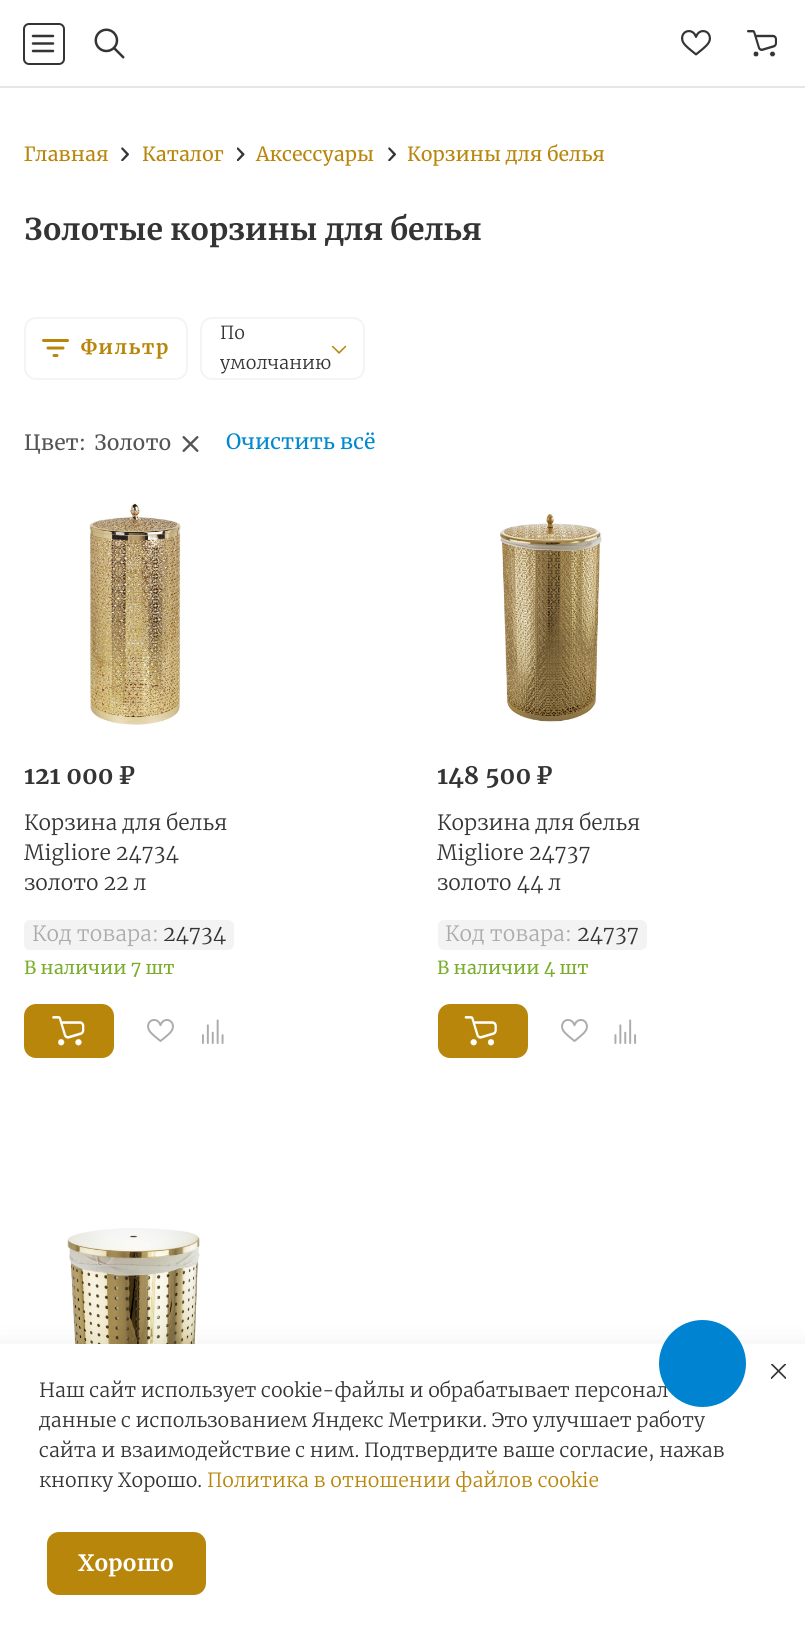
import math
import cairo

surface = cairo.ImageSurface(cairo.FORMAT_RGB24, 805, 1631)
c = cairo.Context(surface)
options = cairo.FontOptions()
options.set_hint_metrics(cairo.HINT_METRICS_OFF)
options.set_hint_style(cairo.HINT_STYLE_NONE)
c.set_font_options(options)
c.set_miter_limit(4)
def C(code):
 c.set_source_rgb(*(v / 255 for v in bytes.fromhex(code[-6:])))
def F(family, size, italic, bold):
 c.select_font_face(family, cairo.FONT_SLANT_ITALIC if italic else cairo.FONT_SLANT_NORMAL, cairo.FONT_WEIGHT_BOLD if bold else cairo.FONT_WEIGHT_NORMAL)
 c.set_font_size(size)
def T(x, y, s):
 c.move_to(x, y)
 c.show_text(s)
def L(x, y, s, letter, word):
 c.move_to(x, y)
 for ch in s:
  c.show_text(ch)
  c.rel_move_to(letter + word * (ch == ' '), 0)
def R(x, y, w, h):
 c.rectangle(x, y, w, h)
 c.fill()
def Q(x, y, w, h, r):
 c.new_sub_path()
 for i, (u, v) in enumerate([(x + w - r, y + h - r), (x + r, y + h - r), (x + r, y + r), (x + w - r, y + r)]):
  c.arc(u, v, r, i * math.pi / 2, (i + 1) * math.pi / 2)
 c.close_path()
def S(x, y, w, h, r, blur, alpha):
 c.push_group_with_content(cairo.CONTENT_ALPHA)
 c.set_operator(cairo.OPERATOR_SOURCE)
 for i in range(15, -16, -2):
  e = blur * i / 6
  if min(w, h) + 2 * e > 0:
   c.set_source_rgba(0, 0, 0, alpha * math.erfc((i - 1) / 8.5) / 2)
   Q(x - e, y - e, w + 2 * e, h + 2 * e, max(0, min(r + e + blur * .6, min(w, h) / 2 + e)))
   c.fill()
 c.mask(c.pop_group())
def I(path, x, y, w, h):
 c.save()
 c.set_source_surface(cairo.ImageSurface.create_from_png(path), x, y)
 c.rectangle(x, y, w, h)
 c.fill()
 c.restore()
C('ffffff')
c.paint()
C('e6e6e6')
R(0,86,805,2)
Q(24,24,40,40,5)
C('343434')
c.stroke()
c.new_path()
c.move_to(33,36)
c.line_to(53,36)
c.move_to(33,43.5)
c.line_to(53,43.5)
c.move_to(33,51)
c.line_to(53,51)
c.set_line_width(2.5)
c.set_line_cap(cairo.LINE_CAP_ROUND)
c.set_line_join(cairo.LINE_JOIN_ROUND)
c.stroke()
I('1.png',94,28,31,31)
I('2.png',681,30,30,26)
I('3.png',747,30,30,27)
F('Merriweather',19.5,0,0)
C('b8860b')
T(24,161,'Главная')
I('4.png',121,147,8,14)
T(142,161,'Каталог')
I('5.png',237,147,8,14)
T(256,161,'Аксессуары')
I('4.png',388,147,8,14)
T(407,161,'Корзины для белья')
F('Merriweather',30,0,1)
C('343434')
T(24,240,'Золотые корзины для белья')
Q(25,318,162,61,11)
C('f4f4f4')
c.set_line_width(2)
c.set_line_cap(cairo.LINE_CAP_BUTT)
c.set_line_join(cairo.LINE_JOIN_MITER)
c.stroke()
I('6.png',42,339,27,18)
F('Merriweather',19.5,0,1)
C('b8860b')
L(81,354,'Фильтр',1.5,0)
Q(201,318,163,61,11)
C('f4f4f4')
c.stroke()
F('Merriweather Light',18,0,0)
C('343434')
T(220,339,'По')
T(220,369,'умолчанию')
I('7.png',331,345,16,9)
F('Merriweather',21,0,0)
C('555555')
T(24,450,'Цвет:')
T(94,450,'Золото')
I('8.png',182,436,17,16)
C('0089ce')
T(226,449,'Очистить всё')
I('9.png',89,503,92,222)
F('Merriweather',24,0,1)
C('343434')
T(24,784,'121 000 ₽')
F('Merriweather Light',21,0,0)
T(24,830,'Корзина для белья')
T(24,860,'Migliore 24734')
T(24,890,'золото 22 л')
C('f3f3f3')
Q(24,920,210,30,6)
c.fill()
C('acacac')
T(32,941,'Код товара:')
C('343434')
T(163,941,'24734')
F('Merriweather',18,0,0)
C('78ae2b')
T(24,974,'В наличии 7 шт')
C('b8860b')
Q(25,1005,88,52,11)
c.fill_preserve()
c.stroke()
I('10.png',52,1016,33,30)
I('11.png',147,1019,27,23)
I('12.png',202,1019,22,25)
I('13.png',500,514,102,208)
F('Merriweather',24,0,1)
C('343434')
T(437,784,'148 500 ₽')
F('Merriweather Light',21,0,0)
T(437,830,'Корзина для белья')
T(437,860,'Migliore 24737')
T(437,890,'золото 44 л')
C('f3f3f3')
Q(438,920,209,30,6)
c.fill()
C('acacac')
T(445,941,'Код товара:')
C('343434')
T(577,941,'24737')
F('Merriweather',18,0,0)
C('78ae2b')
T(437,974,'В наличии 4 шт')
C('b8860b')
Q(439,1005,88,52,11)
c.fill_preserve()
c.stroke()
I('14.png',464,1016,33,30)
I('11.png',561,1019,27,23)
I('15.png',614,1019,23,25)
I('16.png',67,1228,133,116)
C('000000')
S(0,1352,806,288,0,15,.12)
C('ffffff')
R(0,1344,805,287)
F('Merriweather Light',19.5,0,0)
C('343434')
T(39,1397,'Наш сайт использует cookie-файлы и обрабатывает персонал')
C('0083d1')
c.new_path()
c.arc(702.5,1363.5,43.5,0,2 * math.pi)
c.fill()
I('17.png',771,1364,15,15)
C('343434')
T(39,1427,'данные с использованием Яндекс Метрики. Это улучшает работу')
T(39,1457,'сайта и взаимодействие с ним. Подтвердите ваше согласие, нажав')
T(39,1487,'кнопку Хорошо.')
C('b8860b')
T(207,1487,'Политика в отношении файлов cookie')
Q(48,1533,157,61,11)
c.fill_preserve()
c.stroke()
F('Merriweather',22.5,0,1)
C('ffffff')
T(78,1571,'Хорошо')
surface.write_to_png('o.png')
